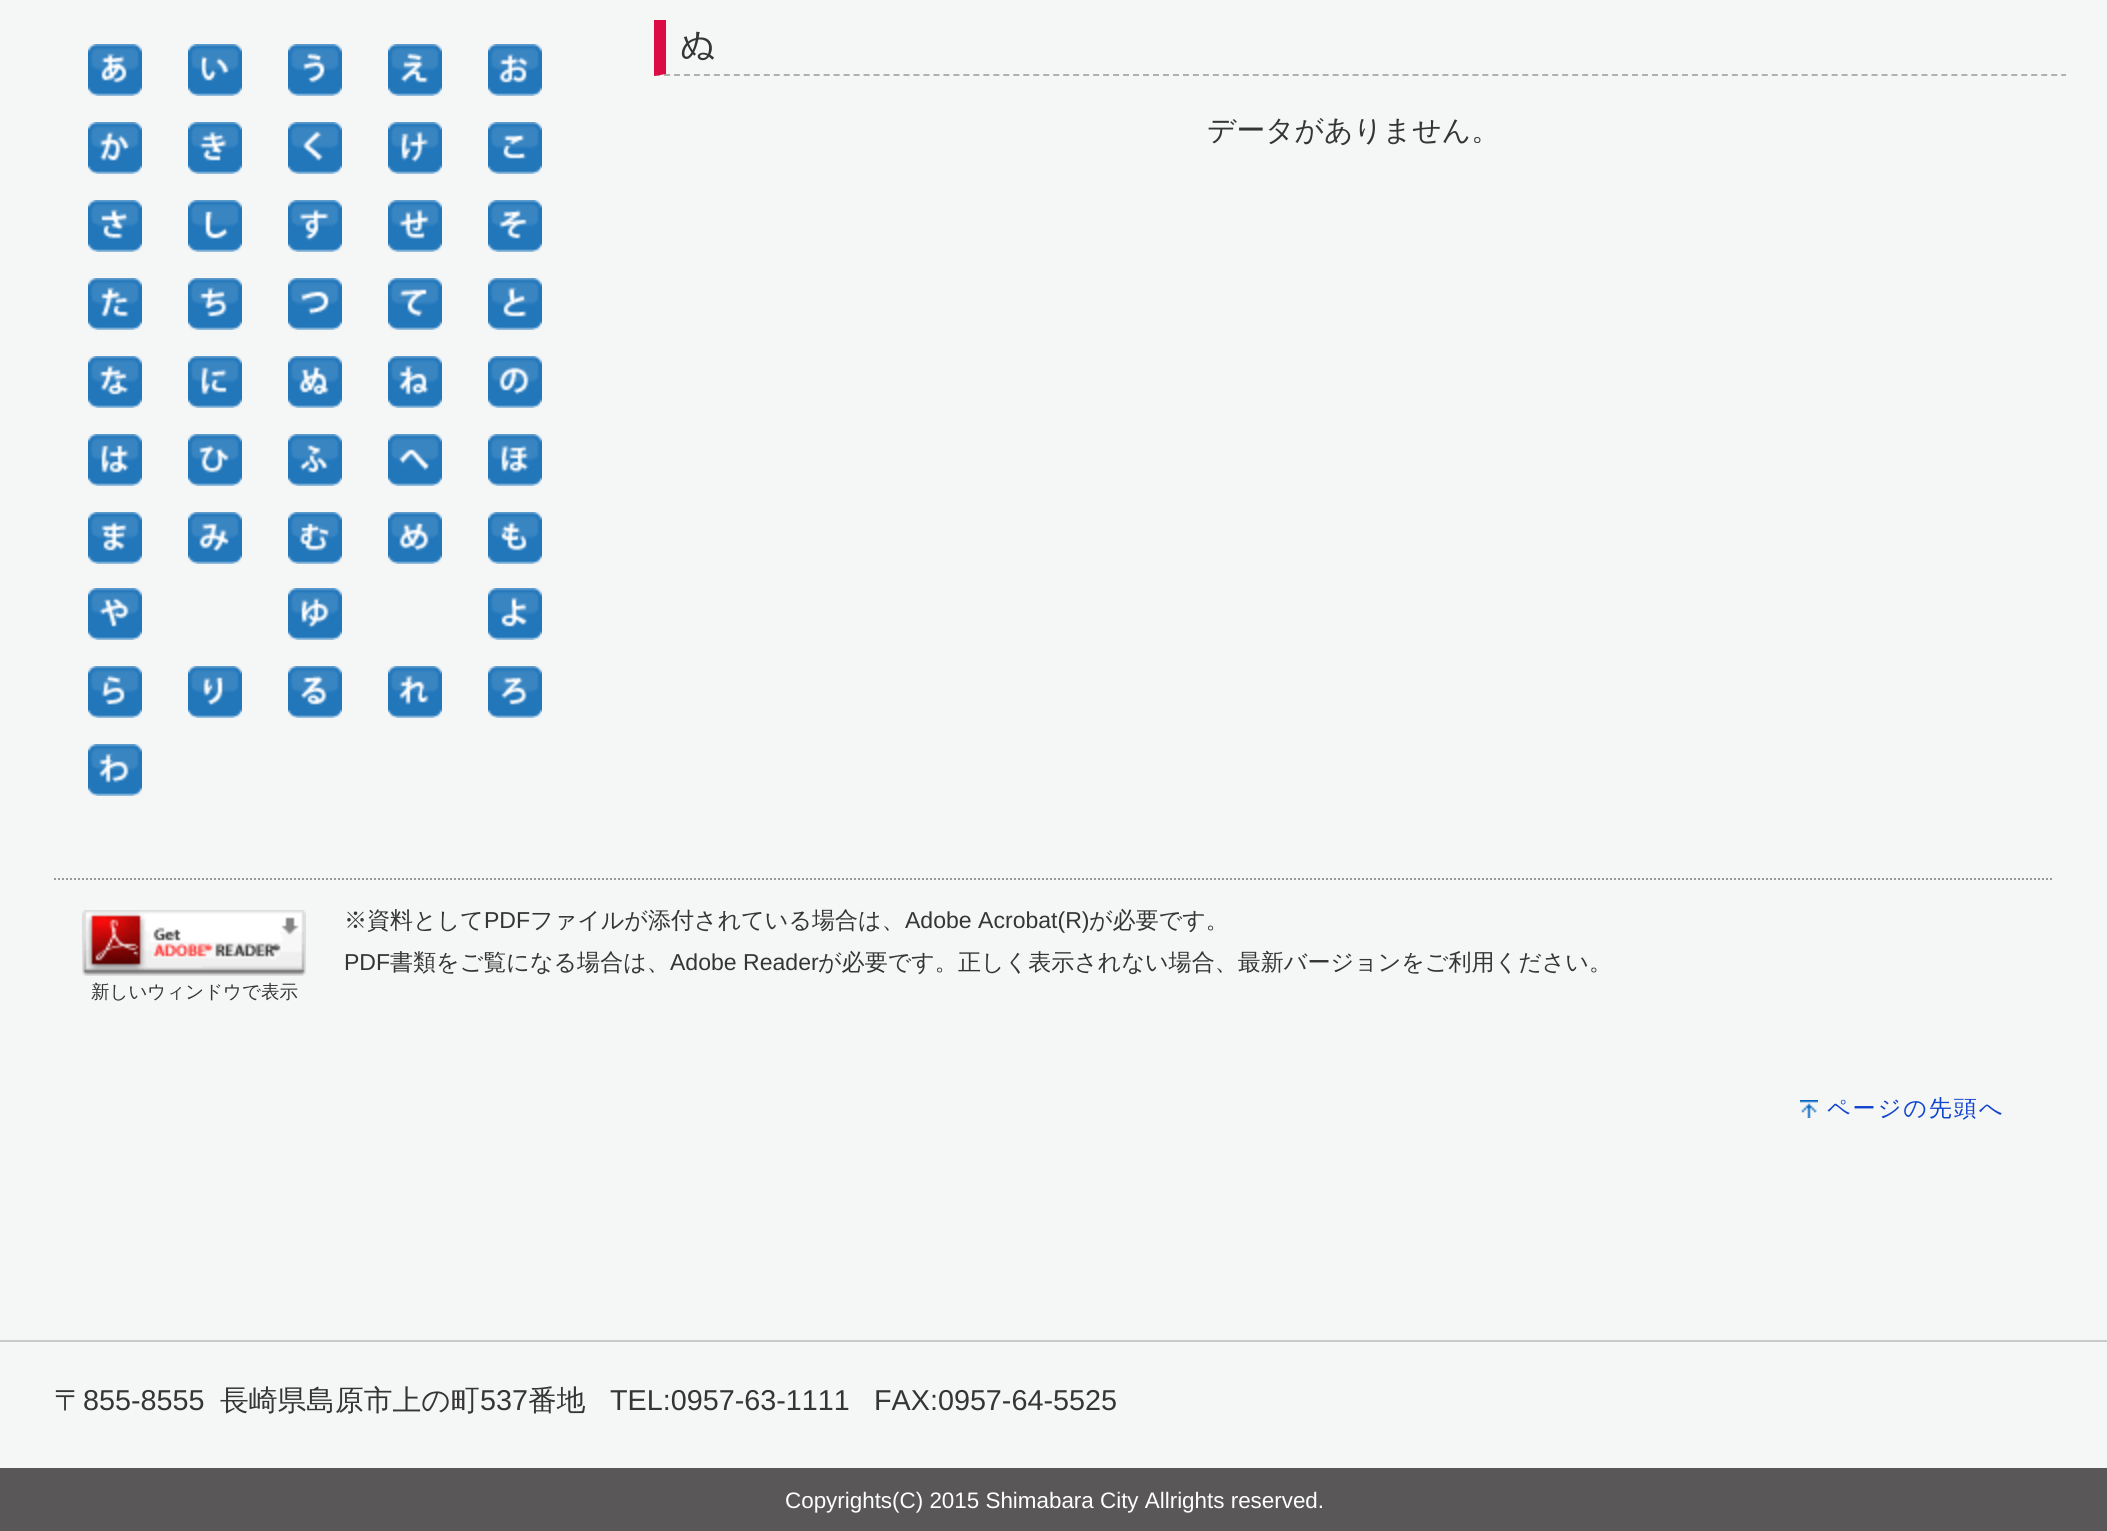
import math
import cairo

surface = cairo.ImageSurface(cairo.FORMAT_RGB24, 2107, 1531)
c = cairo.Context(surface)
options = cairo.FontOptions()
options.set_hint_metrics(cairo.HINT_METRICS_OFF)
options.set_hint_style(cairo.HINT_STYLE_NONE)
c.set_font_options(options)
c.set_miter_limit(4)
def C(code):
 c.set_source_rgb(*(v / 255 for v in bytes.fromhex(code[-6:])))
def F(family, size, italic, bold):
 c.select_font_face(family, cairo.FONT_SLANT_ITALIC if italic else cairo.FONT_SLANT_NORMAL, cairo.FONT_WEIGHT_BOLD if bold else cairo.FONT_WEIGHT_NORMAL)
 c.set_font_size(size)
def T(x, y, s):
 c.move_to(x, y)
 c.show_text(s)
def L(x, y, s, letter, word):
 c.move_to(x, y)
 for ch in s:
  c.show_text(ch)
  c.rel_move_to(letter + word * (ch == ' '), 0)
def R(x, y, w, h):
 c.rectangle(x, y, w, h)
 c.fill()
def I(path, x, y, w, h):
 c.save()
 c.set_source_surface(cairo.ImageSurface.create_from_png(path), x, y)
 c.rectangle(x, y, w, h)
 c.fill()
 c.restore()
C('f5f7f6')
c.paint()
I('1.png',88,44,54,52)
I('2.png',188,44,54,52)
I('3.png',288,44,54,52)
I('4.png',388,44,54,52)
I('5.png',488,44,54,52)
I('6.png',88,122,54,52)
I('7.png',188,122,54,52)
I('8.png',288,122,54,52)
I('9.png',388,122,54,52)
I('10.png',488,122,54,52)
I('11.png',88,200,54,52)
I('12.png',188,200,54,52)
I('13.png',288,200,54,52)
I('14.png',388,200,54,52)
I('15.png',488,200,54,52)
I('16.png',88,278,54,52)
I('17.png',188,278,54,52)
I('18.png',288,278,54,52)
I('19.png',388,278,54,52)
I('20.png',488,278,54,52)
I('21.png',88,356,54,52)
I('22.png',188,356,54,52)
I('23.png',288,356,54,52)
I('24.png',388,356,54,52)
I('25.png',488,356,54,52)
I('26.png',88,434,54,52)
I('27.png',188,434,54,52)
I('28.png',288,434,54,52)
I('29.png',388,434,54,52)
I('30.png',488,434,54,52)
I('31.png',88,512,54,52)
I('32.png',188,512,54,52)
I('33.png',288,512,54,52)
I('34.png',388,512,54,52)
I('35.png',488,512,54,52)
I('36.png',88,588,54,52)
I('37.png',288,588,54,52)
I('38.png',488,588,54,52)
I('39.png',88,666,54,52)
I('40.png',188,666,54,52)
I('41.png',288,666,54,52)
I('42.png',388,666,54,52)
I('43.png',488,666,54,52)
I('44.png',88,744,54,52)
c.new_path()
c.move_to(654,75)
c.line_to(2066,75)
C('b1b0af')
c.set_dash([6,3.98])
c.stroke()
C('dd0b43')
c.new_path()
c.move_to(654,76)
c.line_to(654,20)
c.line_to(666,20)
c.line_to(666,74)
c.close_path()
c.fill()
F('WenQuanYi Zen Hei Medium',35,0,0)
C('353535')
L(680,56,'ぬ',2,0)
F('WenQuanYi Zen Hei Medium',28.75,0,0)
T(1207,140,'データがありません。')
c.new_path()
c.move_to(54,879)
c.line_to(2054,879)
C('999999')
c.set_dash([2,2])
c.stroke()
F('WenQuanYi Zen Hei Medium',23.05,0,0)
C('353535')
T(344,928,'※資料として')
F('Liberation Sans',23.05,0,0)
T(484,928,'PDF')
F('WenQuanYi Zen Hei Medium',23.05,0,0)
T(530,928,'ファイルが添付されている場合は、')
F('Liberation Sans',23.05,0,0)
T(905,928,'Adobe Acrobat(R)')
F('WenQuanYi Zen Hei Medium',23.05,0,0)
T(1089,928,'が必要です。')
F('Liberation Sans',23.05,0,0)
T(344,970,'PDF')
F('WenQuanYi Zen Hei Medium',23.05,0,0)
T(390,970,'書類をご覧になる場合は、')
F('Liberation Sans',23.05,0,0)
T(670,970,'Adobe Reader')
F('WenQuanYi Zen Hei Medium',23.05,0,0)
T(818,970,'が必要です。正しく表示されない場合、最新バージョンをご利用ください。')
I('45.png',82,910,224,66)
F('WenQuanYi Zen Hei Medium',18.5,0,0)
T(91,998,'新しいウィンドウで表示')
I('46.png',1800,1100,18,18)
F('WenQuanYi Zen Hei Medium',23.05,0,0)
C('1144cc')
L(1827,1116,'ページの先頭へ',2,0)
C('cacaca')
R(0,1340,2107,2)
F('WenQuanYi Zen Hei Medium',28.75,0,0)
C('353535')
T(54,1410,'〒')
F('Liberation Sans',28.75,0,0)
T(83,1410,'855-8555')
F('WenQuanYi Zen Hei Medium',28.75,0,0)
T(220,1410,'長崎県島原市上の町')
F('Liberation Sans',28.75,0,0)
T(480,1410,'537')
F('WenQuanYi Zen Hei Medium',28.75,0,0)
T(528,1410,'番地')
F('Liberation Sans',28.75,0,0)
T(610,1410,'TEL:0957-63-1111')
T(874,1410,'FAX:0957-64-5525')
C('595757')
R(0,1468,2107,63)
F('Liberation Sans',22.4,0,0)
C('ffffff')
T(785,1508,'Copyrights(C) 2015 Shimabara City Allrights reserved.')
surface.write_to_png('o.png')
